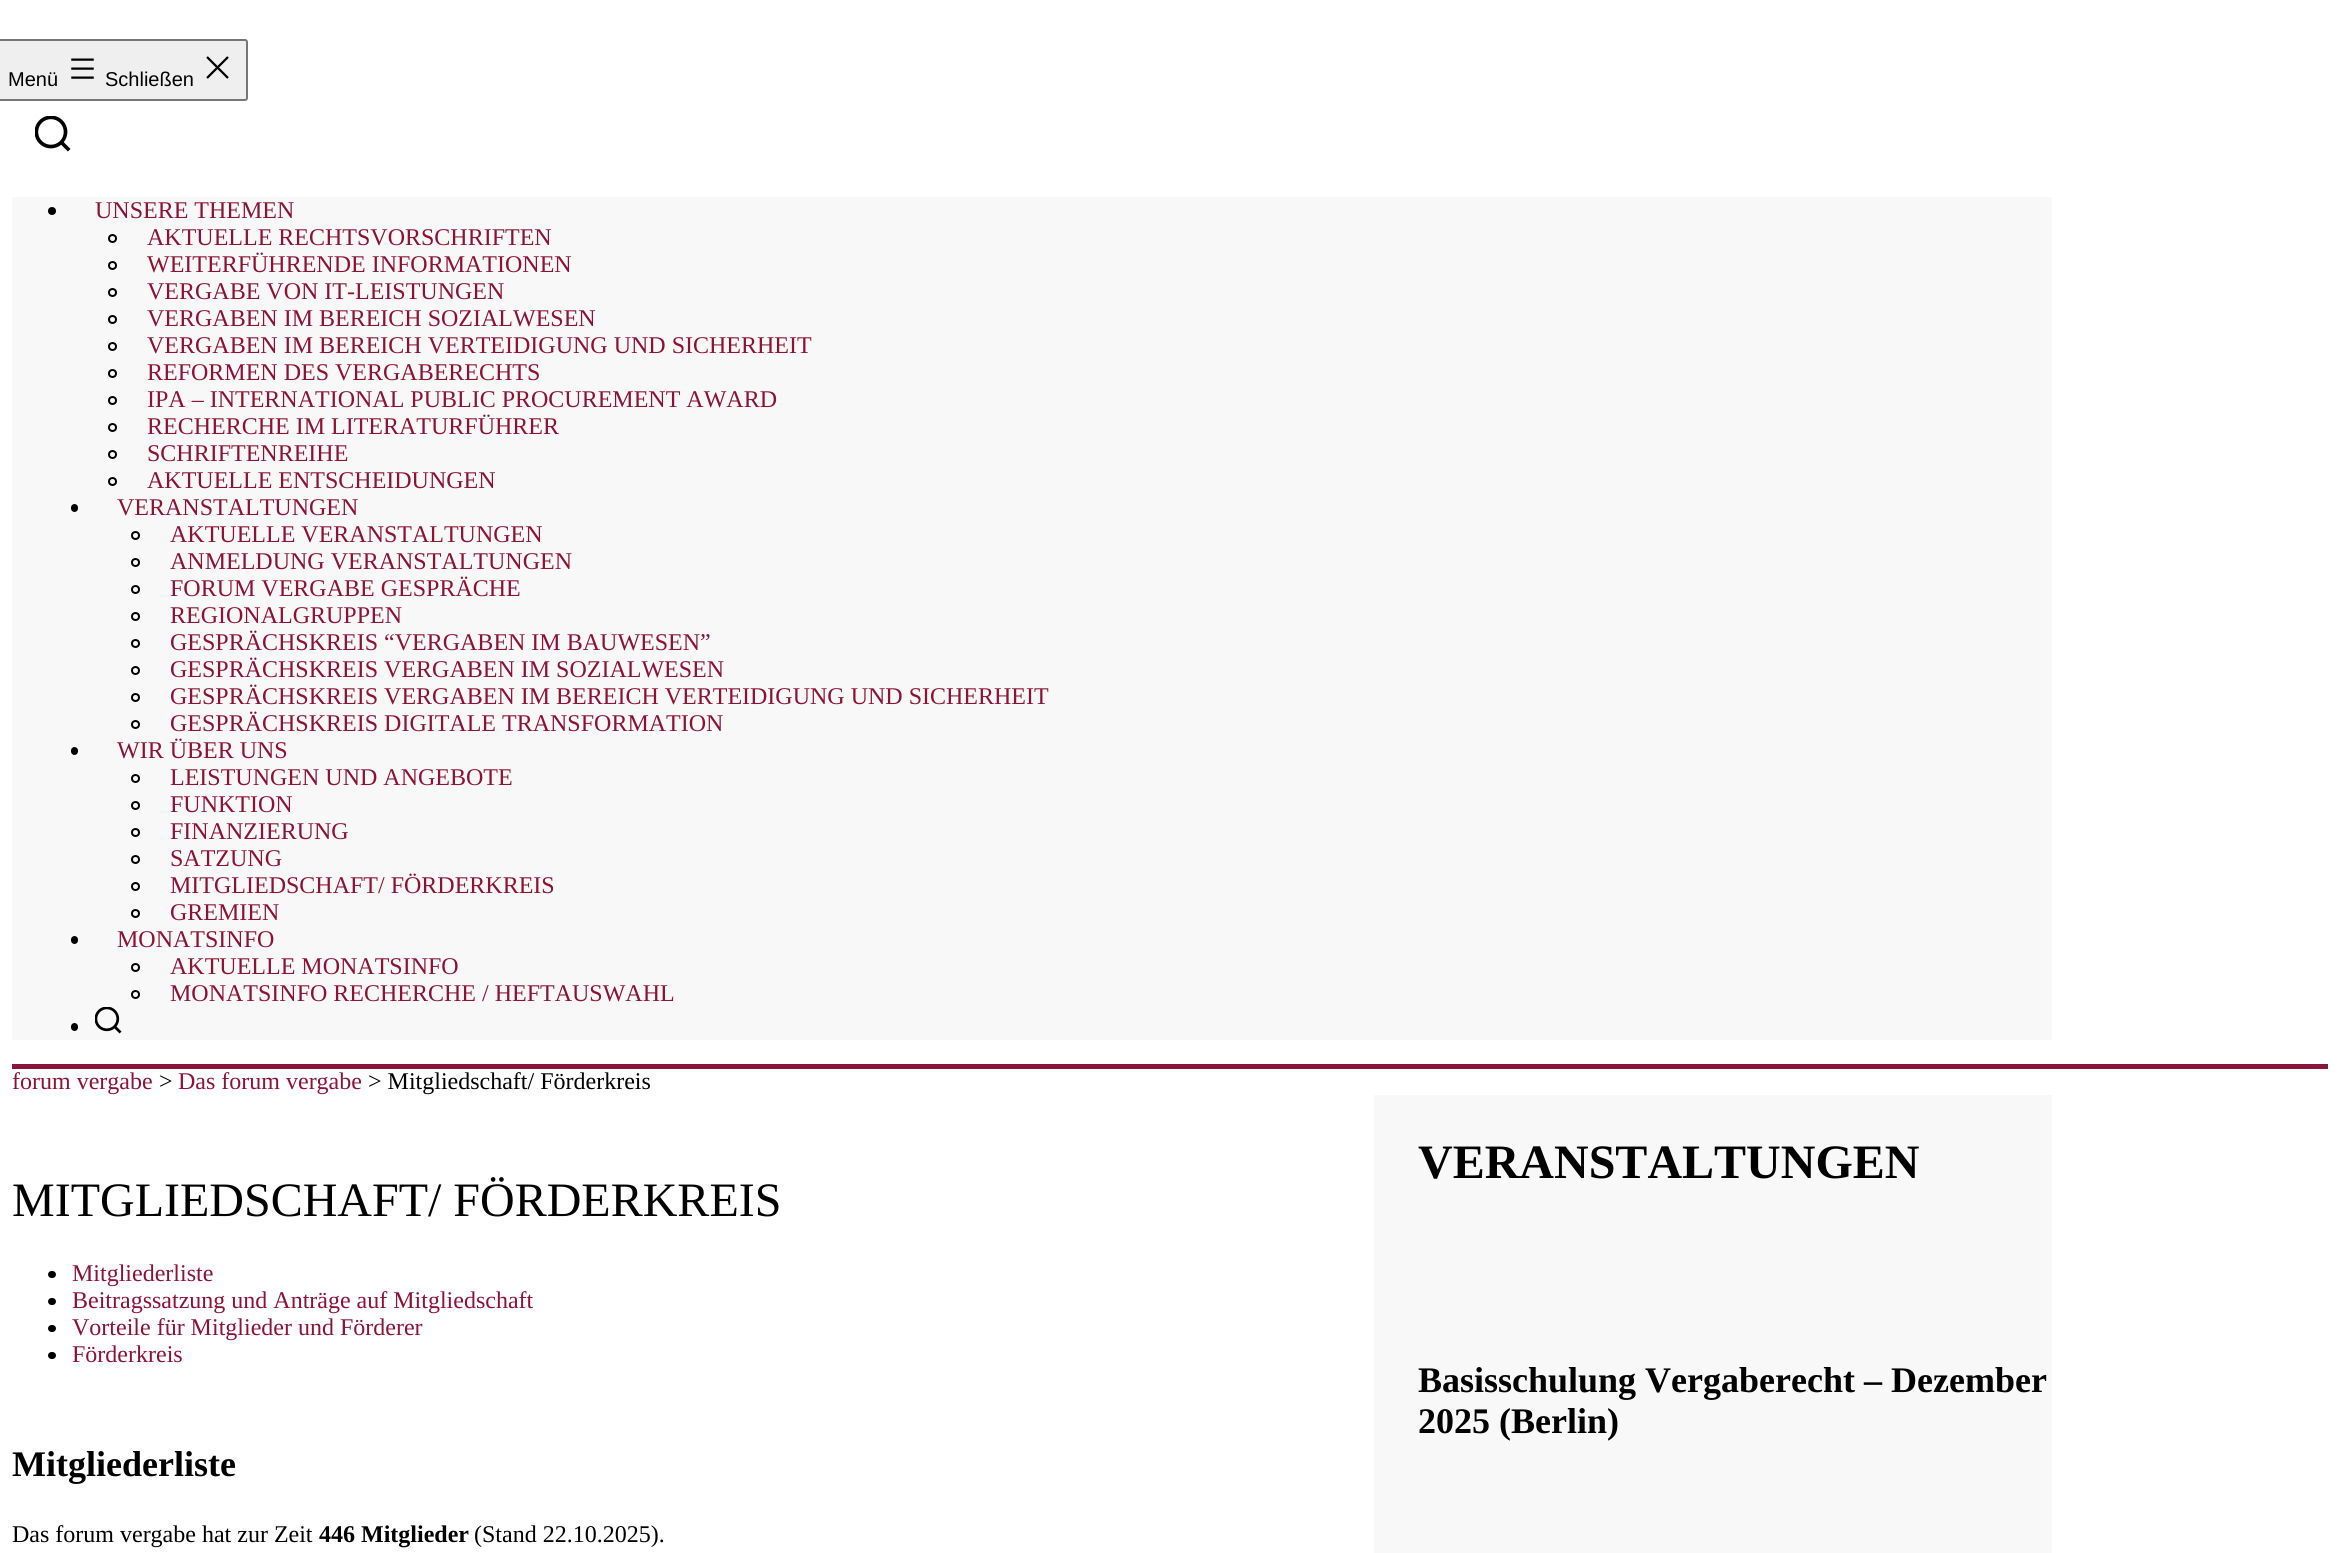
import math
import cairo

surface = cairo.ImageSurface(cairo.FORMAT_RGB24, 2339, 1553)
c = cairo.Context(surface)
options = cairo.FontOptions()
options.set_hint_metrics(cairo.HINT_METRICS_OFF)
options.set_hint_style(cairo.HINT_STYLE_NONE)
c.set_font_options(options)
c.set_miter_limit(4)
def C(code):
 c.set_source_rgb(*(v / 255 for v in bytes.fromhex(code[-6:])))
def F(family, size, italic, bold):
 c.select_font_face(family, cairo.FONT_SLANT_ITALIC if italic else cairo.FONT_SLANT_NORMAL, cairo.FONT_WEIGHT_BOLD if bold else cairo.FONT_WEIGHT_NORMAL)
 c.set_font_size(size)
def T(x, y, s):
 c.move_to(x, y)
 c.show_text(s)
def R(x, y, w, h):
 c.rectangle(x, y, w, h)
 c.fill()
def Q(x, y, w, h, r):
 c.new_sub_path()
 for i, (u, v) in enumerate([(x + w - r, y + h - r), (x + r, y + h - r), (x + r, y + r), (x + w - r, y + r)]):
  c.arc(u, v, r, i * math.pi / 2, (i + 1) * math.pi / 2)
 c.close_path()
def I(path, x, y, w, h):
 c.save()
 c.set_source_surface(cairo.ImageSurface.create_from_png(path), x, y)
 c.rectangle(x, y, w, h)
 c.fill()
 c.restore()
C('ffffff')
c.paint()
C('8a1538')
R(12,1064,2316,5)
C('efefef')
Q(-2,40,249,60,2)
c.fill_preserve()
C('767676')
c.stroke()
F('Liberation Sans',20,0,0)
C('000000')
T(8,86,'Menü')
I('1.png',71,58,23,21)
T(105,86,'Schließen')
I('2.png',206,56,23,23)
I('3.png',35,116,36,36)
C('f8f8f8')
R(12,197,2040,843)
C('000000')
c.arc(52,211,4,0,2 * math.pi)
c.fill()
F('Liberation Serif',24,0,0)
C('8e1236')
T(95,218,'UNSERE THEMEN')
c.new_path()
c.arc(112.5,238.5,3.5,0,2 * math.pi)
C('000000')
c.stroke()
C('8e1236')
T(147,245,'AKTUELLE RECHTSVORSCHRIFTEN')
c.new_path()
c.arc(112.5,265.5,3.5,0,2 * math.pi)
C('000000')
c.stroke()
C('8e1236')
T(147,272,'WEITERFÜHRENDE INFORMATIONEN')
c.new_path()
c.arc(112.5,292.5,3.5,0,2 * math.pi)
C('000000')
c.stroke()
C('8e1236')
T(147,299,'VERGABE VON IT-LEISTUNGEN')
c.new_path()
c.arc(112.5,319.5,3.5,0,2 * math.pi)
C('000000')
c.stroke()
C('8e1236')
T(147,326,'VERGABEN IM BEREICH SOZIALWESEN')
c.new_path()
c.arc(112.5,346.5,3.5,0,2 * math.pi)
C('000000')
c.stroke()
C('8e1236')
T(147,353,'VERGABEN IM BEREICH VERTEIDIGUNG UND SICHERHEIT')
c.new_path()
c.arc(112.5,373.5,3.5,0,2 * math.pi)
C('000000')
c.stroke()
C('8e1236')
T(147,380,'REFORMEN DES VERGABERECHTS')
c.new_path()
c.arc(112.5,400.5,3.5,0,2 * math.pi)
C('000000')
c.stroke()
C('8e1236')
T(147,407,'IPA – INTERNATIONAL PUBLIC PROCUREMENT AWARD')
c.new_path()
c.arc(112.5,427.5,3.5,0,2 * math.pi)
C('000000')
c.stroke()
C('8e1236')
T(147,434,'RECHERCHE IM LITERATURFÜHRER')
c.new_path()
c.arc(112.5,454.5,3.5,0,2 * math.pi)
C('000000')
c.stroke()
C('8e1236')
T(147,461,'SCHRIFTENREIHE')
c.new_path()
c.arc(112.5,481.5,3.5,0,2 * math.pi)
C('000000')
c.stroke()
C('8e1236')
T(147,488,'AKTUELLE ENTSCHEIDUNGEN')
C('000000')
Q(71,504,7,8,3.5)
c.fill()
C('8e1236')
T(117,515,'VERANSTALTUNGEN')
c.new_path()
c.arc(135.5,535.5,3.5,0,2 * math.pi)
C('000000')
c.stroke()
C('8e1236')
T(170,542,'AKTUELLE VERANSTALTUNGEN')
c.new_path()
c.arc(135.5,562.5,3.5,0,2 * math.pi)
C('000000')
c.stroke()
C('8e1236')
T(170,569,'ANMELDUNG VERANSTALTUNGEN')
c.new_path()
c.arc(135.5,589.5,3.5,0,2 * math.pi)
C('000000')
c.stroke()
C('8e1236')
T(170,596,'FORUM VERGABE GESPRÄCHE')
c.new_path()
c.arc(135.5,616.5,3.5,0,2 * math.pi)
C('000000')
c.stroke()
C('8e1236')
T(170,623,'REGIONALGRUPPEN')
c.new_path()
c.arc(135.5,643.5,3.5,0,2 * math.pi)
C('000000')
c.stroke()
C('8e1236')
T(170,650,'GESPRÄCHSKREIS “VERGABEN IM BAUWESEN”')
c.new_path()
c.arc(135.5,670.5,3.5,0,2 * math.pi)
C('000000')
c.stroke()
C('8e1236')
T(170,677,'GESPRÄCHSKREIS VERGABEN IM SOZIALWESEN')
c.new_path()
c.arc(135.5,697.5,3.5,0,2 * math.pi)
C('000000')
c.stroke()
C('8e1236')
T(170,704,'GESPRÄCHSKREIS VERGABEN IM BEREICH VERTEIDIGUNG UND SICHERHEIT')
c.new_path()
c.arc(135.5,724.5,3.5,0,2 * math.pi)
C('000000')
c.stroke()
C('8e1236')
T(170,731,'GESPRÄCHSKREIS DIGITALE TRANSFORMATION')
C('000000')
Q(71,747,7,8,3.5)
c.fill()
C('8e1236')
T(117,758,'WIR ÜBER UNS')
c.new_path()
c.arc(135.5,778.5,3.5,0,2 * math.pi)
C('000000')
c.stroke()
C('8e1236')
T(170,785,'LEISTUNGEN UND ANGEBOTE')
c.new_path()
c.arc(135.5,805.5,3.5,0,2 * math.pi)
C('000000')
c.stroke()
C('8e1236')
T(170,812,'FUNKTION')
c.new_path()
c.arc(135.5,832.5,3.5,0,2 * math.pi)
C('000000')
c.stroke()
C('8e1236')
T(170,839,'FINANZIERUNG')
c.new_path()
c.arc(135.5,859.5,3.5,0,2 * math.pi)
C('000000')
c.stroke()
C('8e1236')
T(170,866,'SATZUNG')
c.new_path()
c.arc(135.5,886.5,3.5,0,2 * math.pi)
C('000000')
c.stroke()
C('8e1236')
T(170,893,'MITGLIEDSCHAFT/ FÖRDERKREIS')
c.new_path()
c.arc(135.5,913.5,3.5,0,2 * math.pi)
C('000000')
c.stroke()
C('8e1236')
T(170,920,'GREMIEN')
C('000000')
Q(71,936,7,8,3.5)
c.fill()
C('8e1236')
T(117,947,'MONATSINFO')
c.new_path()
c.arc(135.5,967.5,3.5,0,2 * math.pi)
C('000000')
c.stroke()
C('8e1236')
T(170,974,'AKTUELLE MONATSINFO')
c.new_path()
c.arc(135.5,994.5,3.5,0,2 * math.pi)
C('000000')
c.stroke()
C('8e1236')
T(170,1001,'MONATSINFO RECHERCHE / HEFTAUSWAHL')
C('000000')
Q(71,1023,7,8,3.5)
c.fill()
I('4.png',95,1007,27,27)
C('8e1236')
T(12,1089,'forum vergabe')
C('000000')
T(159,1089,'>')
C('8e1236')
T(178,1089,'Das forum vergabe')
C('000000')
T(368,1089,'> Mitgliedschaft/ Förderkreis')
F('Liberation Serif',48,0,0)
T(12,1216,'MITGLIEDSCHAFT/ FÖRDERKREIS')
Q(48,1271,8,7,3.5)
c.fill()
F('Liberation Serif',24,0,0)
C('8e1236')
T(72,1281,'Mitgliederliste')
C('000000')
Q(48,1298,8,7,3.5)
c.fill()
C('8e1236')
T(72,1308,'Beitragssatzung und Anträge auf Mitgliedschaft')
C('000000')
Q(48,1325,8,7,3.5)
c.fill()
C('8e1236')
T(72,1335,'Vorteile für Mitglieder und Förderer')
C('000000')
Q(48,1352,8,7,3.5)
c.fill()
C('8e1236')
T(72,1362,'Förderkreis')
F('Liberation Serif',36,0,1)
C('000000')
T(12,1476,'Mitgliederliste')
F('Liberation Serif',24,0,0)
T(12,1542,'Das forum vergabe hat zur Zeit')
F('Liberation Serif',24,0,1)
T(319,1542,'446 Mitglieder')
F('Liberation Serif',24,0,0)
T(474,1542,'(Stand 22.10.2025).')
C('f8f8f8')
R(1374,1095,678,458)
F('Liberation Serif',48,0,1)
C('000000')
T(1418,1178,'VERANSTALTUNGEN')
F('Liberation Serif',36,0,1)
T(1418,1392,'Basisschulung Vergaberecht – Dezember')
T(1418,1433,'2025 (Berlin)')
surface.write_to_png('o.png')
